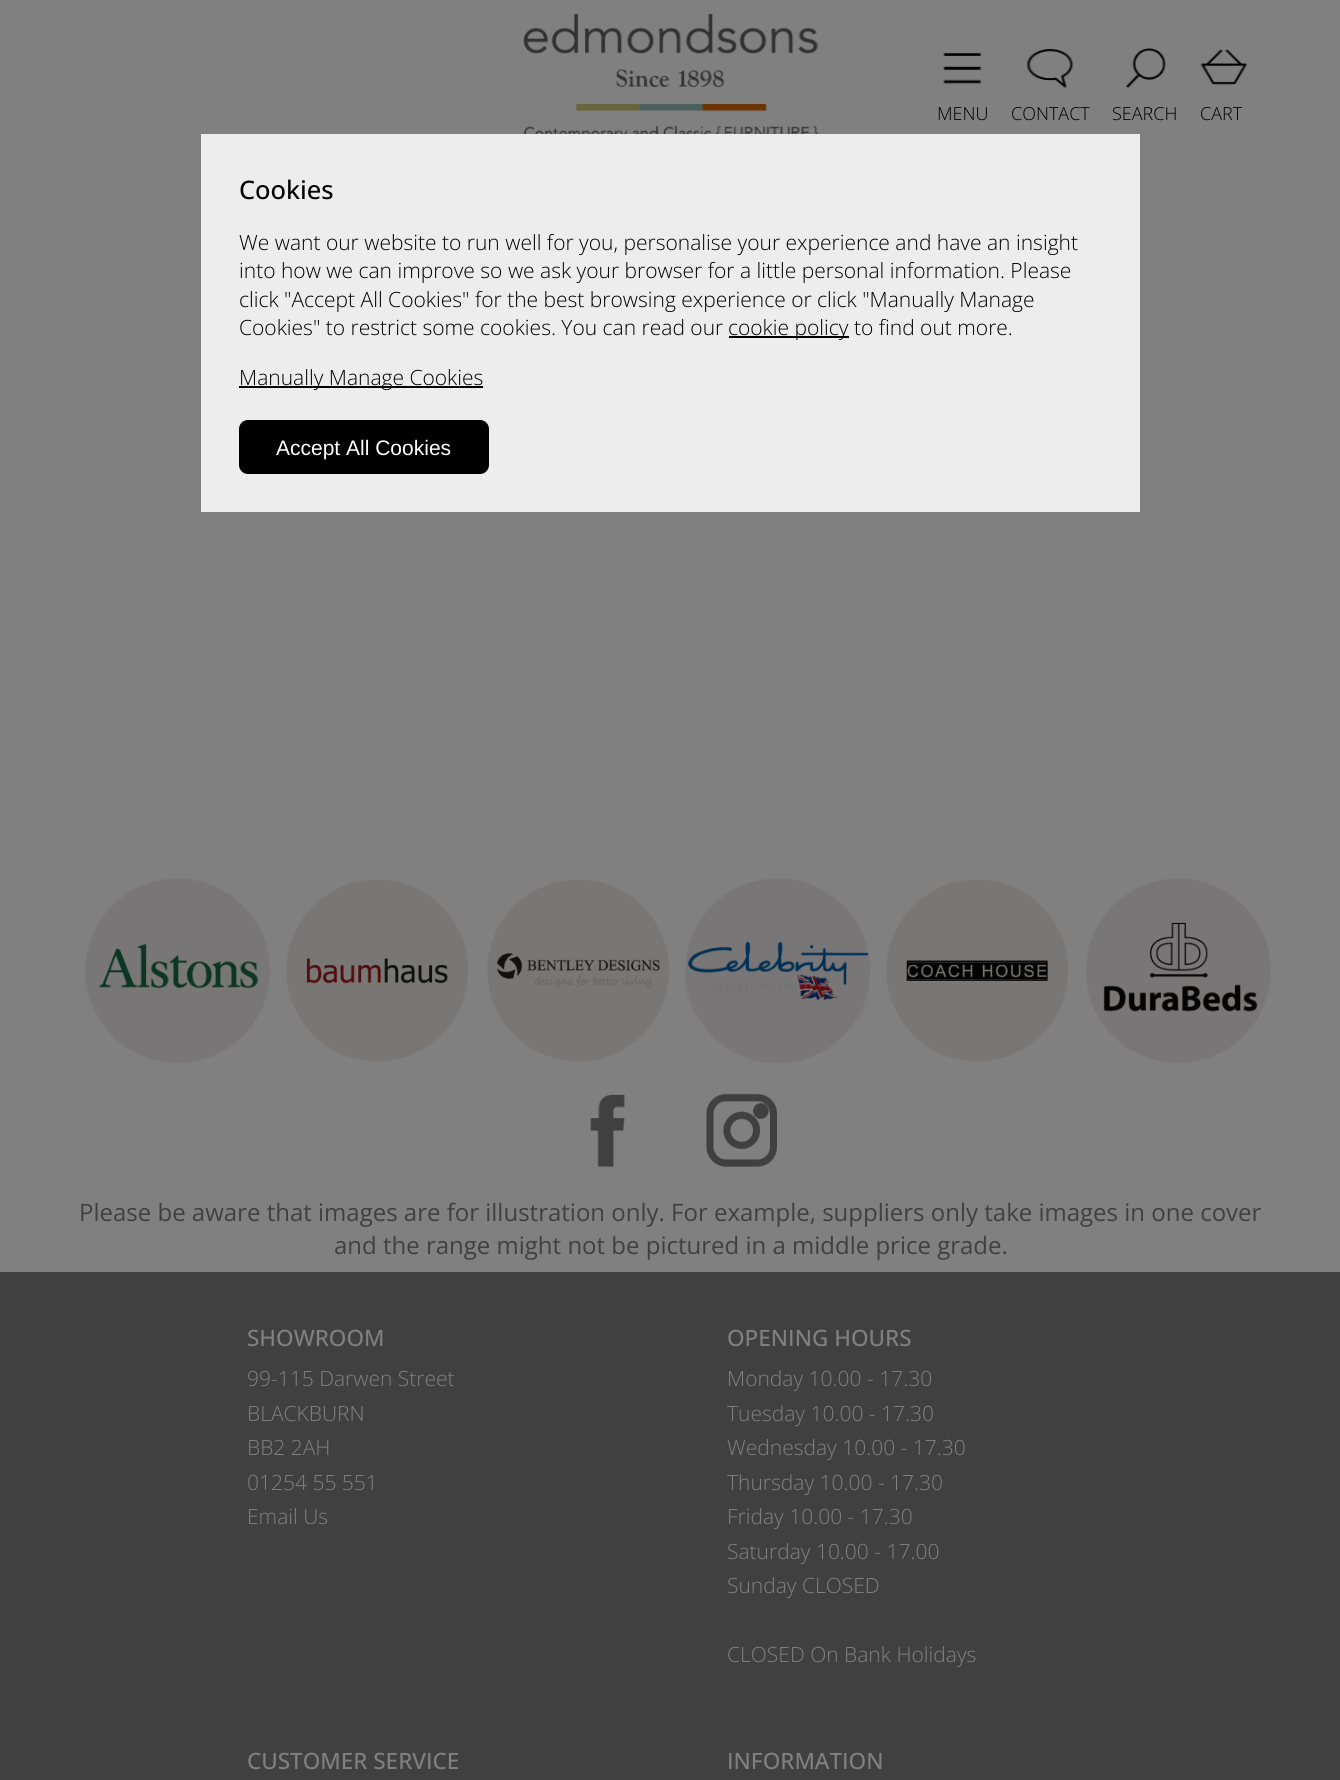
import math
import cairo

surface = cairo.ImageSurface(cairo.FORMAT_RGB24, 1340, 1780)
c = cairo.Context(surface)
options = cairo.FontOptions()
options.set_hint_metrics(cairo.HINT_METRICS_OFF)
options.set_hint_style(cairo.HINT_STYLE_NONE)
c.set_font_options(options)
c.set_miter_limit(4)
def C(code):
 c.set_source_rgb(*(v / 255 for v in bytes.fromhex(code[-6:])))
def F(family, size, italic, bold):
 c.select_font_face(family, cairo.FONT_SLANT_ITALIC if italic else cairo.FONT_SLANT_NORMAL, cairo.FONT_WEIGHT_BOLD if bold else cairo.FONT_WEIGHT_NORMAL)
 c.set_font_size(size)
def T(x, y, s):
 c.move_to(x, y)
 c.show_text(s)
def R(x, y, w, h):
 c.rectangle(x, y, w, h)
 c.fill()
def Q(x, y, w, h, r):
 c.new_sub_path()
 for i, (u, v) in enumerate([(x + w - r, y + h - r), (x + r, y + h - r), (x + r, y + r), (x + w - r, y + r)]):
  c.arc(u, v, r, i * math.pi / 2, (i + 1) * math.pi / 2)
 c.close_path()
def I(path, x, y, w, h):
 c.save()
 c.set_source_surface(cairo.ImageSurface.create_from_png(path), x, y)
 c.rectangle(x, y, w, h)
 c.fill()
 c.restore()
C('808080')
c.paint()
I('1.png',523,14,296,120)
I('2.png',943,53,39,31)
F('Open Sans Light',18,0,0)
C('000000')
T(937,120,'MENU')
I('3.png',1026,48,48,40)
T(1011,120,'CONTACT')
I('4.png',1126,48,40,40)
T(1112,120,'SEARCH')
I('5.png',1200,49,48,36)
T(1200,120,'CART')
C('ededed')
R(201,134,939,378)
F('Open Sans Medium',25.5,0,0)
C('000000')
T(239,199,'Cookies')
F('Open Sans Light',21,0,0)
T(239,250,'We want our website to run well for you, personalise your experience and have an insight')
T(239,278,'into how we can improve so we ask your browser for a little personal information. Please')
T(239,307,'click "Accept All Cookies" for the best browsing experience or click "Manually Manage')
T(239,335,'Cookies" to restrict some cookies. You can read our')
R(729,336,120,2)
T(728,335,'cookie policy to find out more.')
R(239,386,244,2)
T(239,385,'Manually Manage Cookies')
Q(239,420,250,54,9)
c.fill()
F('Liberation Sans',21,0,0)
C('ffffff')
T(276,455,'Accept All Cookies')
I('6.png',85,878,185,185)
I('7.png',286,879,182,183)
I('8.png',487,879,182,183)
I('9.png',685,878,185,185)
I('10.png',886,879,182,183)
I('11.png',1086,878,185,185)
I('12.png',590,1094,35,73)
I('13.png',706,1093,71,74)
F('Open Sans',24,0,0)
C('404040')
T(79,1221,'Please be aware that images are for illustration only. For example, suppliers only take images in one cover')
T(334,1254,'and the range might not be pictured in a middle price grade.')
R(0,1272,1340,508)
F('Open Sans Medium',22.5,0,0)
C('808080')
T(247,1346,'SHOWROOM')
F('Open Sans Light',21,0,0)
T(247,1386,'99-115 Darwen Street')
T(247,1421,'BLACKBURN')
T(247,1455,'BB2 2AH')
T(247,1490,'01254 55 551')
T(247,1524,'Email Us')
F('Open Sans Medium',22.5,0,0)
T(727,1346,'OPENING HOURS')
F('Open Sans Light',21,0,0)
T(727,1386,'Monday 10.00 - 17.30')
T(727,1421,'Tuesday 10.00 - 17.30')
T(727,1455,'Wednesday 10.00 - 17.30')
T(727,1490,'Thursday 10.00 - 17.30')
T(727,1524,'Friday 10.00 - 17.30')
T(727,1559,'Saturday 10.00 - 17.00')
T(727,1593,'Sunday CLOSED')
T(727,1662,'CLOSED On Bank Holidays')
F('Open Sans Medium',22.5,0,0)
T(247,1769,'CUSTOMER SERVICE')
T(727,1769,'INFORMATION')
surface.write_to_png('o.png')
